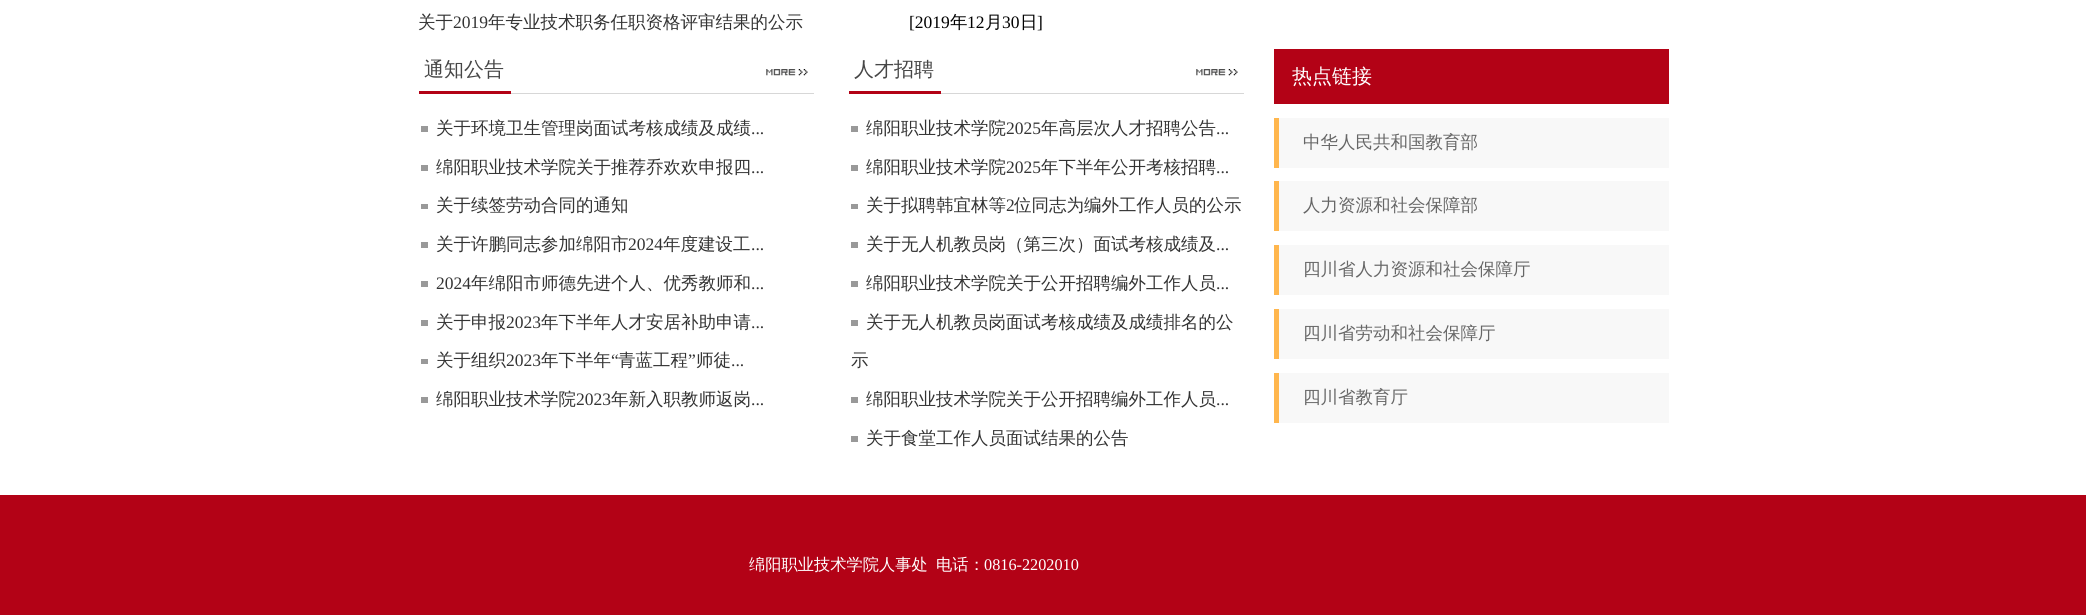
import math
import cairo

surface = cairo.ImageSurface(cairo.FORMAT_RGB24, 2086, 615)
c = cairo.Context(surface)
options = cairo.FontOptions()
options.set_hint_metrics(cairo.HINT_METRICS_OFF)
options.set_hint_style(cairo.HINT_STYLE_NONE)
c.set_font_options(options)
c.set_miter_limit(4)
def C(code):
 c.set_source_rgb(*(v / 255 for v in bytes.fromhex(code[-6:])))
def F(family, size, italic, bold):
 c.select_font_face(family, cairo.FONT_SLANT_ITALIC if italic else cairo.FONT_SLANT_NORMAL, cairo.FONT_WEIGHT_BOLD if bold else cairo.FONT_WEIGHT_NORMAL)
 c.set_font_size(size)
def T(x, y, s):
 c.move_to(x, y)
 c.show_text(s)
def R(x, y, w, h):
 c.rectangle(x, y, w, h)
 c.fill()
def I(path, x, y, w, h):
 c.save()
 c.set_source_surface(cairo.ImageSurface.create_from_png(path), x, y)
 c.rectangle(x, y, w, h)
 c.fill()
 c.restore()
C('ffffff')
c.paint()
F('WenQuanYi Zen Hei Medium',17.5,0,0)
C('333333')
T(418,28,'关于')
F('Liberation Serif',17.5,0,0)
T(453,28,'2019')
F('WenQuanYi Zen Hei Medium',17.5,0,0)
T(488,28,'年专业技术职务任职资格评审结果的公示')
F('Liberation Serif',17.5,0,0)
C('000000')
T(909,28,'[2019')
F('WenQuanYi Zen Hei Medium',17.5,0,0)
T(950,28,'年')
F('Liberation Serif',17.5,0,0)
T(967,28,'12')
F('WenQuanYi Zen Hei Medium',17.5,0,0)
T(985,28,'月')
F('Liberation Serif',17.5,0,0)
T(1002,28,'30')
F('WenQuanYi Zen Hei Medium',17.5,0,0)
T(1020,28,'日')
F('Liberation Serif',17.5,0,0)
T(1037,28,']')
C('d7d7d7')
R(511,93,303,1)
C('b30216')
R(419,91,92,3)
F('WenQuanYi Zen Hei Medium',20,0,0)
C('464646')
T(424,76,'通知公告')
I('1.png',766,69,42,7)
C('999999')
R(421,126,7,6)
F('WenQuanYi Zen Hei Medium',17.5,0,0)
C('333333')
T(436,134,'关于环境卫生管理岗面试考核成绩及成绩')
F('Liberation Serif',17.5,0,0)
T(751,134,'...')
C('999999')
R(421,165,7,6)
F('WenQuanYi Zen Hei Medium',17.5,0,0)
C('333333')
T(436,173,'绵阳职业技术学院关于推荐乔欢欢申报四')
F('Liberation Serif',17.5,0,0)
T(751,173,'...')
C('999999')
R(421,204,7,5)
F('WenQuanYi Zen Hei Medium',17.5,0,0)
C('333333')
T(436,211,'关于续签劳动合同的通知')
C('999999')
R(421,242,7,6)
C('333333')
T(436,250,'关于许鹏同志参加绵阳市')
F('Liberation Serif',17.5,0,0)
T(628,250,'2024')
F('WenQuanYi Zen Hei Medium',17.5,0,0)
T(663,250,'年度建设工')
F('Liberation Serif',17.5,0,0)
T(751,250,'...')
C('999999')
R(421,281,7,6)
C('333333')
T(436,289,'2024')
F('WenQuanYi Zen Hei Medium',17.5,0,0)
T(471,289,'年绵阳市师德先进个人、优秀教师和')
F('Liberation Serif',17.5,0,0)
T(751,289,'...')
C('999999')
R(421,320,7,6)
F('WenQuanYi Zen Hei Medium',17.5,0,0)
C('333333')
T(436,328,'关于申报')
F('Liberation Serif',17.5,0,0)
T(506,328,'2023')
F('WenQuanYi Zen Hei Medium',17.5,0,0)
T(541,328,'年下半年人才安居补助申请')
F('Liberation Serif',17.5,0,0)
T(751,328,'...')
C('999999')
R(421,359,7,5)
F('WenQuanYi Zen Hei Medium',17.5,0,0)
C('333333')
T(436,366,'关于组织')
F('Liberation Serif',17.5,0,0)
T(506,366,'2023')
F('WenQuanYi Zen Hei Medium',17.5,0,0)
T(541,366,'年下半年')
F('Liberation Serif',17.5,0,0)
T(611,366,'“')
F('WenQuanYi Zen Hei Medium',17.5,0,0)
T(618,366,'青蓝工程')
F('Liberation Serif',17.5,0,0)
T(688,366,'”')
F('WenQuanYi Zen Hei Medium',17.5,0,0)
T(696,366,'师徒')
F('Liberation Serif',17.5,0,0)
T(731,366,'...')
C('999999')
R(421,397,7,6)
F('WenQuanYi Zen Hei Medium',17.5,0,0)
C('333333')
T(436,405,'绵阳职业技术学院')
F('Liberation Serif',17.5,0,0)
T(576,405,'2023')
F('WenQuanYi Zen Hei Medium',17.5,0,0)
T(611,405,'年新入职教师返岗')
F('Liberation Serif',17.5,0,0)
T(751,405,'...')
C('d7d7d7')
R(941,93,303,1)
C('b30216')
R(849,91,92,3)
F('WenQuanYi Zen Hei Medium',20,0,0)
C('464646')
T(854,76,'人才招聘')
I('1.png',1196,69,42,7)
C('999999')
R(851,126,7,6)
F('WenQuanYi Zen Hei Medium',17.5,0,0)
C('333333')
T(866,134,'绵阳职业技术学院')
F('Liberation Serif',17.5,0,0)
T(1006,134,'2025')
F('WenQuanYi Zen Hei Medium',17.5,0,0)
T(1041,134,'年高层次人才招聘公告')
F('Liberation Serif',17.5,0,0)
T(1216,134,'...')
C('999999')
R(851,165,7,6)
F('WenQuanYi Zen Hei Medium',17.5,0,0)
C('333333')
T(866,173,'绵阳职业技术学院')
F('Liberation Serif',17.5,0,0)
T(1006,173,'2025')
F('WenQuanYi Zen Hei Medium',17.5,0,0)
T(1041,173,'年下半年公开考核招聘')
F('Liberation Serif',17.5,0,0)
T(1216,173,'...')
C('999999')
R(851,204,7,5)
F('WenQuanYi Zen Hei Medium',17.5,0,0)
C('333333')
T(866,211,'关于拟聘韩宜林等')
F('Liberation Serif',17.5,0,0)
T(1006,211,'2')
F('WenQuanYi Zen Hei Medium',17.5,0,0)
T(1014,211,'位同志为编外工作人员的公示')
C('999999')
R(851,242,7,6)
C('333333')
T(866,250,'关于无人机教员岗（第三次）面试考核成绩及')
F('Liberation Serif',17.5,0,0)
T(1216,250,'...')
C('999999')
R(851,281,7,6)
F('WenQuanYi Zen Hei Medium',17.5,0,0)
C('333333')
T(866,289,'绵阳职业技术学院关于公开招聘编外工作人员')
F('Liberation Serif',17.5,0,0)
T(1216,289,'...')
C('999999')
R(851,320,7,6)
F('WenQuanYi Zen Hei Medium',17.5,0,0)
C('333333')
T(866,328,'关于无人机教员岗面试考核成绩及成绩排名的公')
T(851,366,'示')
C('999999')
R(851,397,7,6)
C('333333')
T(866,405,'绵阳职业技术学院关于公开招聘编外工作人员')
F('Liberation Serif',17.5,0,0)
T(1216,405,'...')
C('999999')
R(851,436,7,6)
F('WenQuanYi Zen Hei Medium',17.5,0,0)
C('333333')
T(866,444,'关于食堂工作人员面试结果的公告')
C('b30216')
R(1274,49,395,55)
F('WenQuanYi Zen Hei Medium',20,0,0)
C('ffffff')
T(1292,83,'热点链接')
C('f8f8f8')
R(1279,118,390,50)
C('ffb64d')
R(1274,118,5,50)
F('WenQuanYi Zen Hei Medium',17.5,0,0)
C('666666')
T(1303,148,'中华人民共和国教育部')
C('f8f8f8')
R(1279,181,390,50)
C('ffb64d')
R(1274,181,5,50)
C('666666')
T(1303,211,'人力资源和社会保障部')
C('f8f8f8')
R(1279,245,390,50)
C('ffb64d')
R(1274,245,5,50)
C('666666')
T(1303,275,'四川省人力资源和社会保障厅')
C('f8f8f8')
R(1279,309,390,50)
C('ffb64d')
R(1274,309,5,50)
C('666666')
T(1303,339,'四川省劳动和社会保障厅')
C('f8f8f8')
R(1279,373,390,50)
C('ffb64d')
R(1274,373,5,50)
C('666666')
T(1303,403,'四川省教育厅')
C('b30216')
R(0,495,2086,120)
F('WenQuanYi Zen Hei Medium',16.25,0,0)
C('ffffff')
T(749,570,'绵阳职业技术学院人事处')
T(936,570,'电话：')
F('Liberation Serif',16.25,0,0)
T(984,570,'0816-2202010')
surface.write_to_png('o.png')
